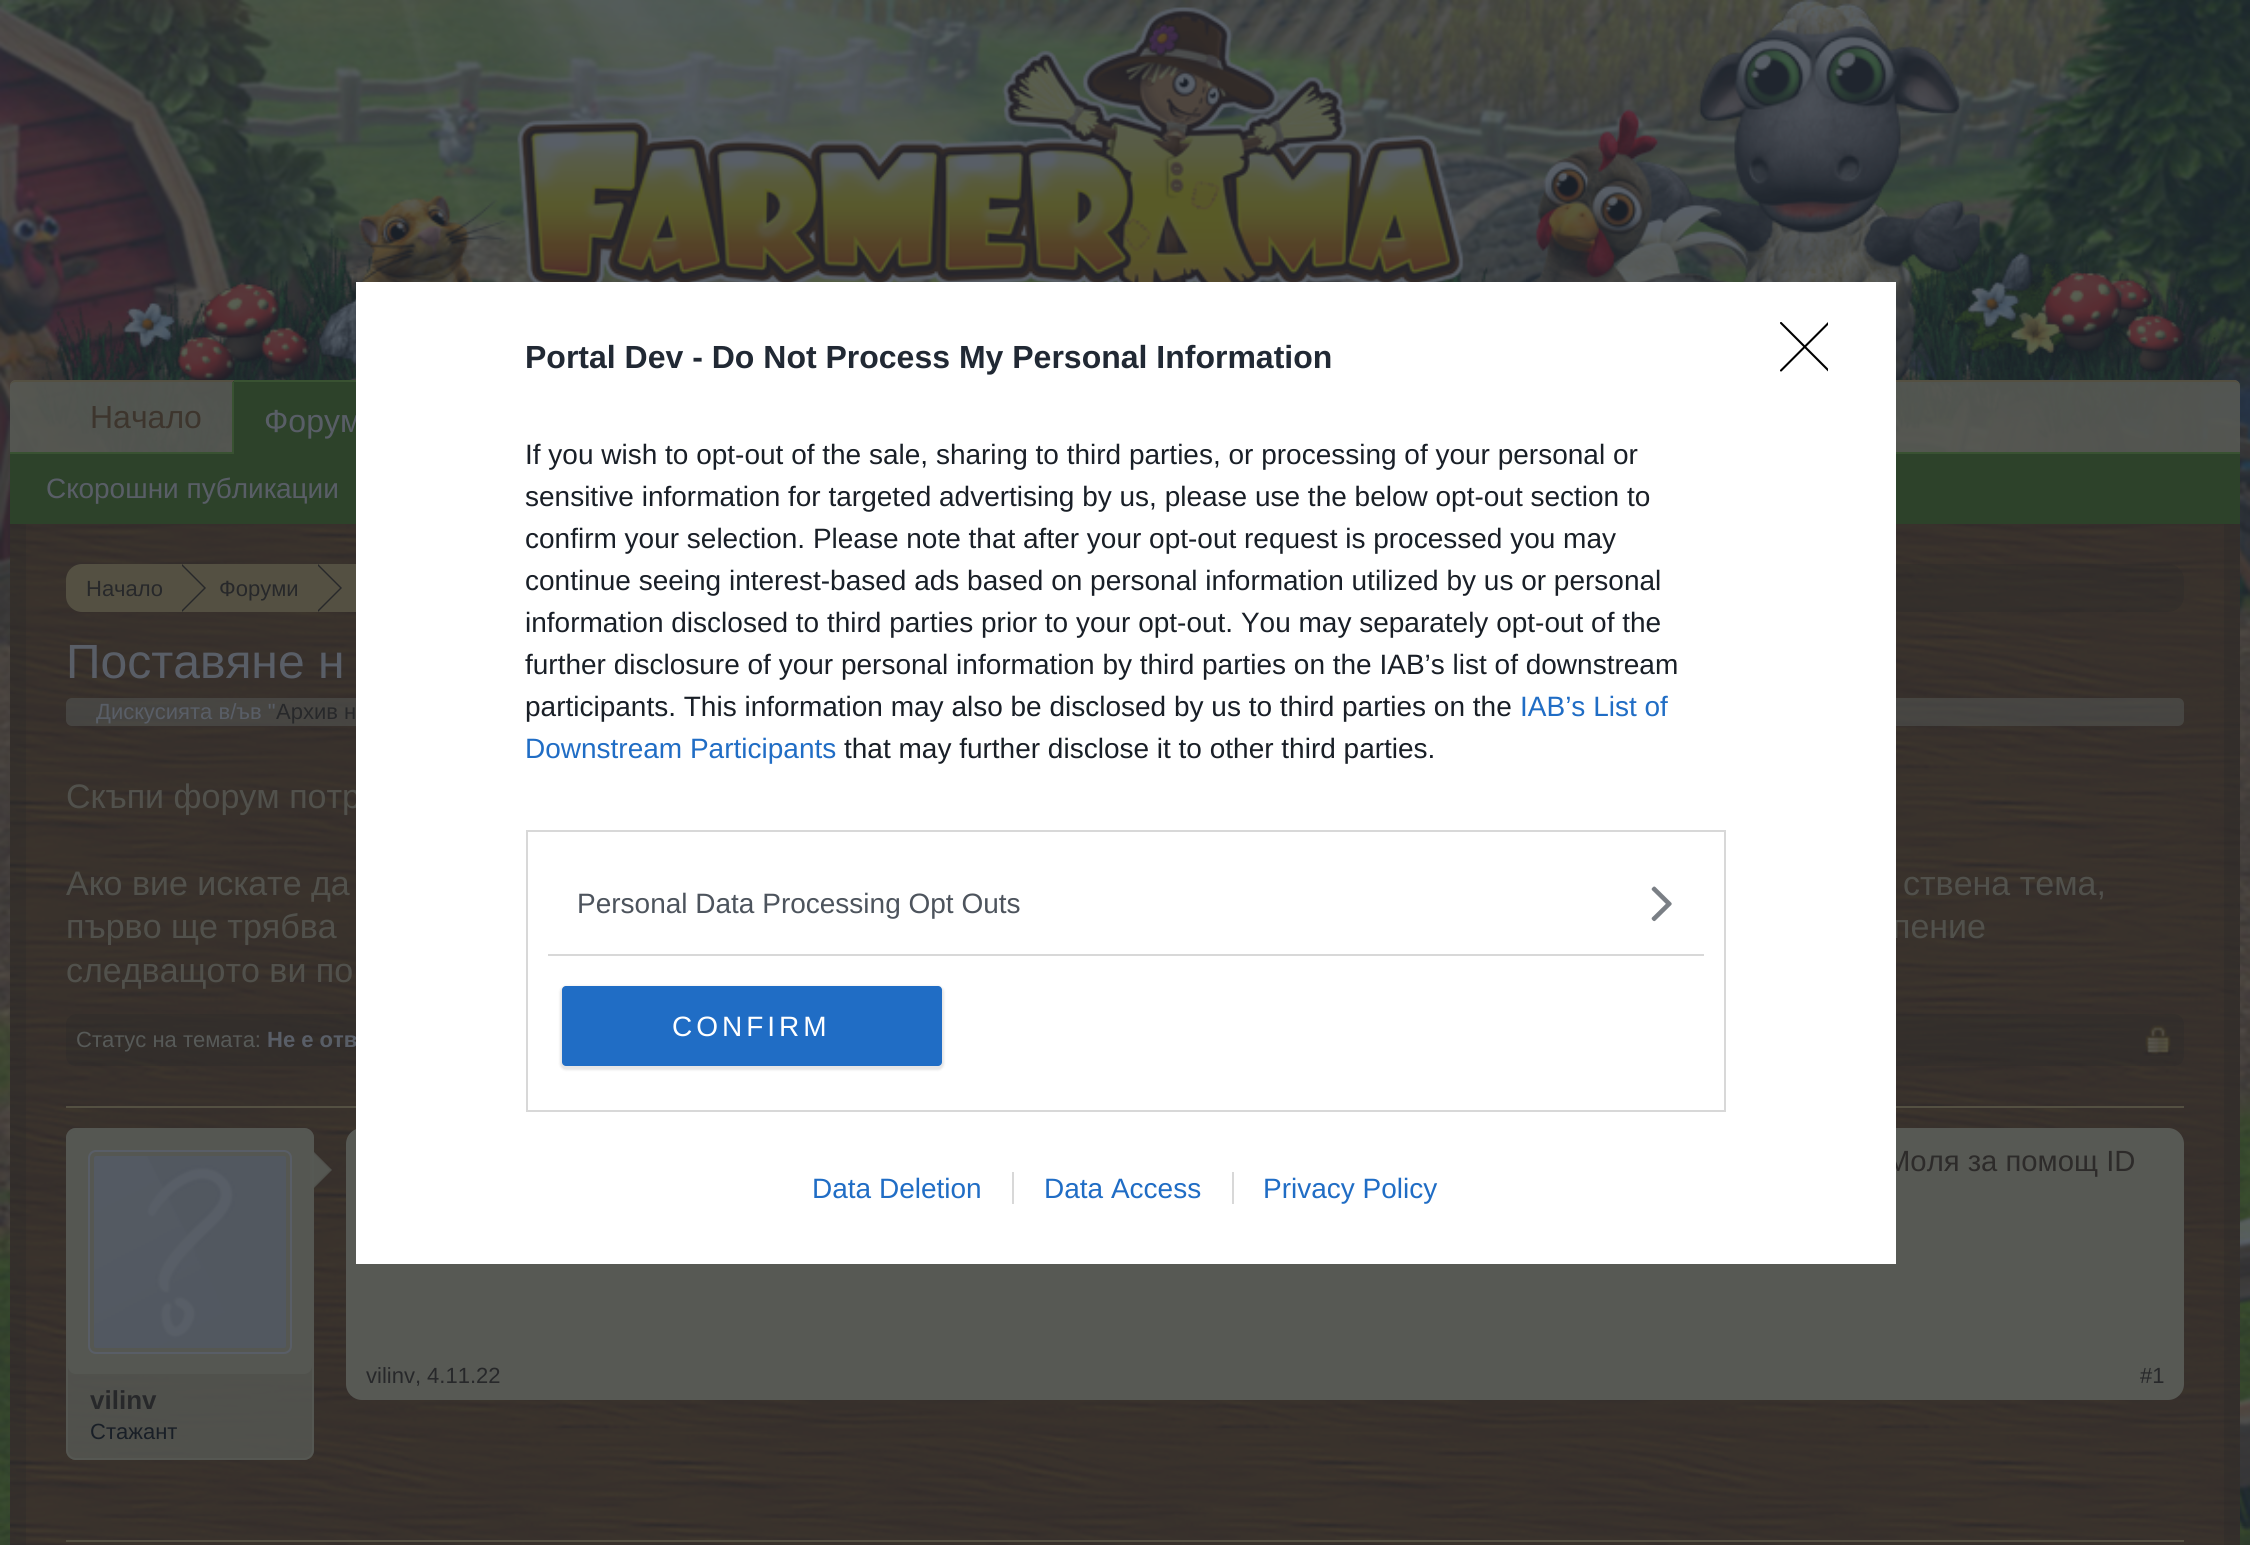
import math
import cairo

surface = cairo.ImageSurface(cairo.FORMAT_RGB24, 2250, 1545)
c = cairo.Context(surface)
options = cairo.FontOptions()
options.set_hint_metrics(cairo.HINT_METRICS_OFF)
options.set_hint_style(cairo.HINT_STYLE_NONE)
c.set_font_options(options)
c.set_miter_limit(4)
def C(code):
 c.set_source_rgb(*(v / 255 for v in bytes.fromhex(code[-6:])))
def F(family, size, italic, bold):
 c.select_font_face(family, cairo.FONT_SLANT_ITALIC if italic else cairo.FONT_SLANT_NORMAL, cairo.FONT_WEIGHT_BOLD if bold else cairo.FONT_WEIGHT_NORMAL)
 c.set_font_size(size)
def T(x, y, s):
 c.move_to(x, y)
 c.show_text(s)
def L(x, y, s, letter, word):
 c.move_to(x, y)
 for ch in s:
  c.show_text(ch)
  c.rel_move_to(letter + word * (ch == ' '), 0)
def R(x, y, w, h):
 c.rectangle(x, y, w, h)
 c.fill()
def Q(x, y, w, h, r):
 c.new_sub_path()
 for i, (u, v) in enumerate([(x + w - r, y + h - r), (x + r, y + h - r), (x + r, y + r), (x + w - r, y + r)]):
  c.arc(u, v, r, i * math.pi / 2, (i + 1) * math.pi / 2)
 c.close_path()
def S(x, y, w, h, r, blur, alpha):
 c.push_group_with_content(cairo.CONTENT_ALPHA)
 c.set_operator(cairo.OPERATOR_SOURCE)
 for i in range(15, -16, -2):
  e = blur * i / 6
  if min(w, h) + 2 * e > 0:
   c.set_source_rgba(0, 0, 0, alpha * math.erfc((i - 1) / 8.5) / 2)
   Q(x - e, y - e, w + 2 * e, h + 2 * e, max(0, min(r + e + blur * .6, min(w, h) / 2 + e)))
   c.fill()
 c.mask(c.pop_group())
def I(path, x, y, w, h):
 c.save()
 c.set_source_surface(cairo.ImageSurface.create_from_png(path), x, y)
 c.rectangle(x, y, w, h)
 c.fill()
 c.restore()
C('ffffff')
c.paint()
I('1.png',0,0,2250,1545)
I('3.png',10,0,2230,452)
c.set_source_rgba(0.341,0.349,0.329,0.9)
c.new_path()
c.move_to(16,380)
c.line_to(2234,380)
c.curve_to(2237.5,380,2240,382.5,2240,386)
c.line_to(2240,456)
c.line_to(10,456)
c.line_to(10,386)
c.curve_to(10,382.5,12.5,380,16,380)
c.close_path()
c.fill()
C('545042')
c.new_path()
c.move_to(16,380)
c.curve_to(13,380,10,383,10,386)
c.curve_to(10,384,13,382,16,382)
c.line_to(2234,382)
c.curve_to(2237,382,2240,384,2240,386)
c.curve_to(2240,383,2237,380,2234,380)
c.close_path()
c.fill()
C('395232')
R(10,452,2230,2)
C('2d422a')
c.new_path()
c.move_to(236,380)
c.line_to(408,380)
c.curve_to(410,380,412,382,412,384)
c.line_to(412,456)
c.line_to(232,456)
c.line_to(232,384)
c.curve_to(232,382,234,380,236,380)
c.close_path()
c.fill()
F('Liberation Sans',32,0,0)
C('595e67')
T(264,432,'Форум')
C('395232')
R(232,382,2,74)
C('2d422a')
R(10,454,2230,70)
I('4.png',10,524,2230,1021)
c.set_source_rgba(0.169,0.169,0.157,0.3)
Q(66,564,2118,48,16)
c.fill()
c.set_source_rgba(0.341,0.353,0.345,0.5)
Q(66,698,2118,28,6)
c.fill()
F('Liberation Sans',34,0,0)
C('51514c')
T(66,808,'Скъпи форум потр')
T(1892,938,'пение')
c.set_source_rgba(0.169,0.169,0.157,0.3)
Q(66,1014,2118,52,10)
c.fill()
F('Liberation Sans',22,0,1)
C('595e67')
T(267,1047,'Не е отв')
C('545042')
R(66,1106,2118,2)
C('575954')
Q(346,1128,1838,272,16)
c.fill()
F('Liberation Sans',29.25,0,0)
C('2d2b2a')
T(1886,1171,'Моля за помощ ID')
C('ffffff')
R(356,282,1540,982)
F('Liberation Sans',32,0,1)
C('212934')
T(525,368,'Portal Dev - Do Not Process My Personal Information')
F('Liberation Sans',28,0,0)
C('191f27')
T(525,464,'If you wish to opt-out of the sale, sharing to third parties, or processing of your personal or')
T(525,506,'sensitive information for targeted advertising by us, please use the below opt-out section to')
T(525,548,'confirm your selection. Please note that after your opt-out request is processed you may')
T(525,590,'continue seeing interest-based ads based on personal information utilized by us or personal')
T(525,632,'information disclosed to third parties prior to your opt-out. You may separately opt-out of the')
T(525,674,'further disclosure of your personal information by third parties on the IAB’s list of downstream')
T(525,716,'participants. This information may also be disclosed by us to third parties on the')
C('206dc5')
T(1520,716,'IAB’s List of')
T(525,758,'Downstream Participants')
C('191f27')
T(844,758,'that may further disclose it to other third parties.')
c.rectangle(527,831,1198,280)
C('d8d8d8')
c.stroke()
R(548,954,1156,2)
C('4d545d')
T(577,913,'Personal Data Processing Opt Outs')
I('2.png',1651,886,21,36)
C('000000')
S(560,986,384,84,6,1,.1)
C('206dc5')
Q(562,986,380,80,4)
c.fill()
C('ffffff')
L(672,1036,'CONFIRM',4,0)
c.save()
c.rectangle(1780,322,48,50)
c.clip()
c.new_path()
c.move_to(1781,323)
c.line_to(1828.5,370.5)
c.move_to(1828.5,323)
c.line_to(1781,370.5)
C('000000')
c.set_line_width(2.1)
c.set_line_cap(cairo.LINE_CAP_ROUND)
c.set_line_join(cairo.LINE_JOIN_ROUND)
c.stroke()
c.restore()
C('206dc5')
T(812,1198,'Data Deletion')
T(1044,1198,'Data Access')
C('d8d8d8')
R(1012,1172,2,32)
C('206dc5')
T(1263,1198,'Privacy Policy')
C('d8d8d8')
R(1232,1172,2,32)
F('Liberation Sans',32,0,0)
C('3d352d')
T(90,428,'Начало')
C('395232')
R(234,380,122,2)
F('Liberation Sans',28,0,0)
C('595e67')
T(46,498,'Скорошни публикации')
c.set_source_rgba(0.169,0.169,0.157,0.3)
R(2224,524,16,1021)
R(10,524,16,1021)
c.save()
Q(66,564,2118,48,16)
c.clip()
C('545042')
c.new_path()
c.move_to(76,564)
c.line_to(182,564)
c.line_to(182,614)
c.line_to(76,614)
c.curve_to(70.5,614,66,609.5,66,604)
c.line_to(66,574)
c.curve_to(66,568.5,70.5,564,76,564)
c.close_path()
c.fill()
c.restore()
F('Liberation Sans',22,0,0)
C('27282a')
T(86,596,'Начало')
C('545042')
R(182,564,174,48)
C('27282a')
c.new_path()
c.move_to(182,612)
c.line_to(182,564)
c.line_to(206,588)
c.close_path()
c.fill()
C('545042')
c.new_path()
c.move_to(180,612)
c.line_to(180,564)
c.line_to(204,588)
c.close_path()
c.fill()
C('27282a')
T(219,596,'Форуми')
c.new_path()
c.move_to(318,612)
c.line_to(318,564)
c.line_to(342,588)
c.close_path()
c.fill()
C('545042')
c.new_path()
c.move_to(316,612)
c.line_to(316,564)
c.line_to(340,588)
c.close_path()
c.fill()
F('Liberation Sans',48,0,0)
C('595e67')
T(66,678,'Поставяне н')
F('Liberation Sans',22,0,0)
T(96,719,'Дискусията в/ъв "')
C('27282a')
T(276,719,'Архив н')
F('Liberation Sans',34,0,0)
C('51514c')
T(66,895,'Ако вие искате да')
T(1903,895,'ствена тема,')
T(66,938,'първо ще трябва')
T(66,982,'следващото ви по')
F('Liberation Sans',22,0,0)
C('575a58')
T(76,1047,'Статус на темата:')
I('5.png',2142,1025,32,31)
C('27282a')
T(366,1383,'vilinv, 4.11.22')
T(2140,1383,'#1')
c.set_source_rgba(0.341,0.349,0.329,0.8)
Q(66,1128,248,332,10)
c.fill()
Q(67,1129,246,330,9)
c.stroke()
Q(68,1130,244,244,8)
c.fill()
Q(89,1151,202,202,7)
C('595e67')
c.stroke()
I('6.png',94,1156,192,192)
c.set_source_rgba(0.341,0.349,0.329,0.8)
c.new_path()
c.move_to(312,1190)
c.line_to(312,1150)
c.line_to(332,1170)
c.close_path()
c.fill()
c.new_path()
c.move_to(310,1190)
c.line_to(310,1150)
c.line_to(330,1170)
c.close_path()
c.fill()
F('Liberation Sans',26,0,1)
C('27282a')
T(90,1409,'vilinv')
F('Liberation Sans',22,0,0)
C('191f27')
T(90,1439,'Стажант')
C('545042')
R(66,1540,2118,2)
surface.write_to_png('o.png')
